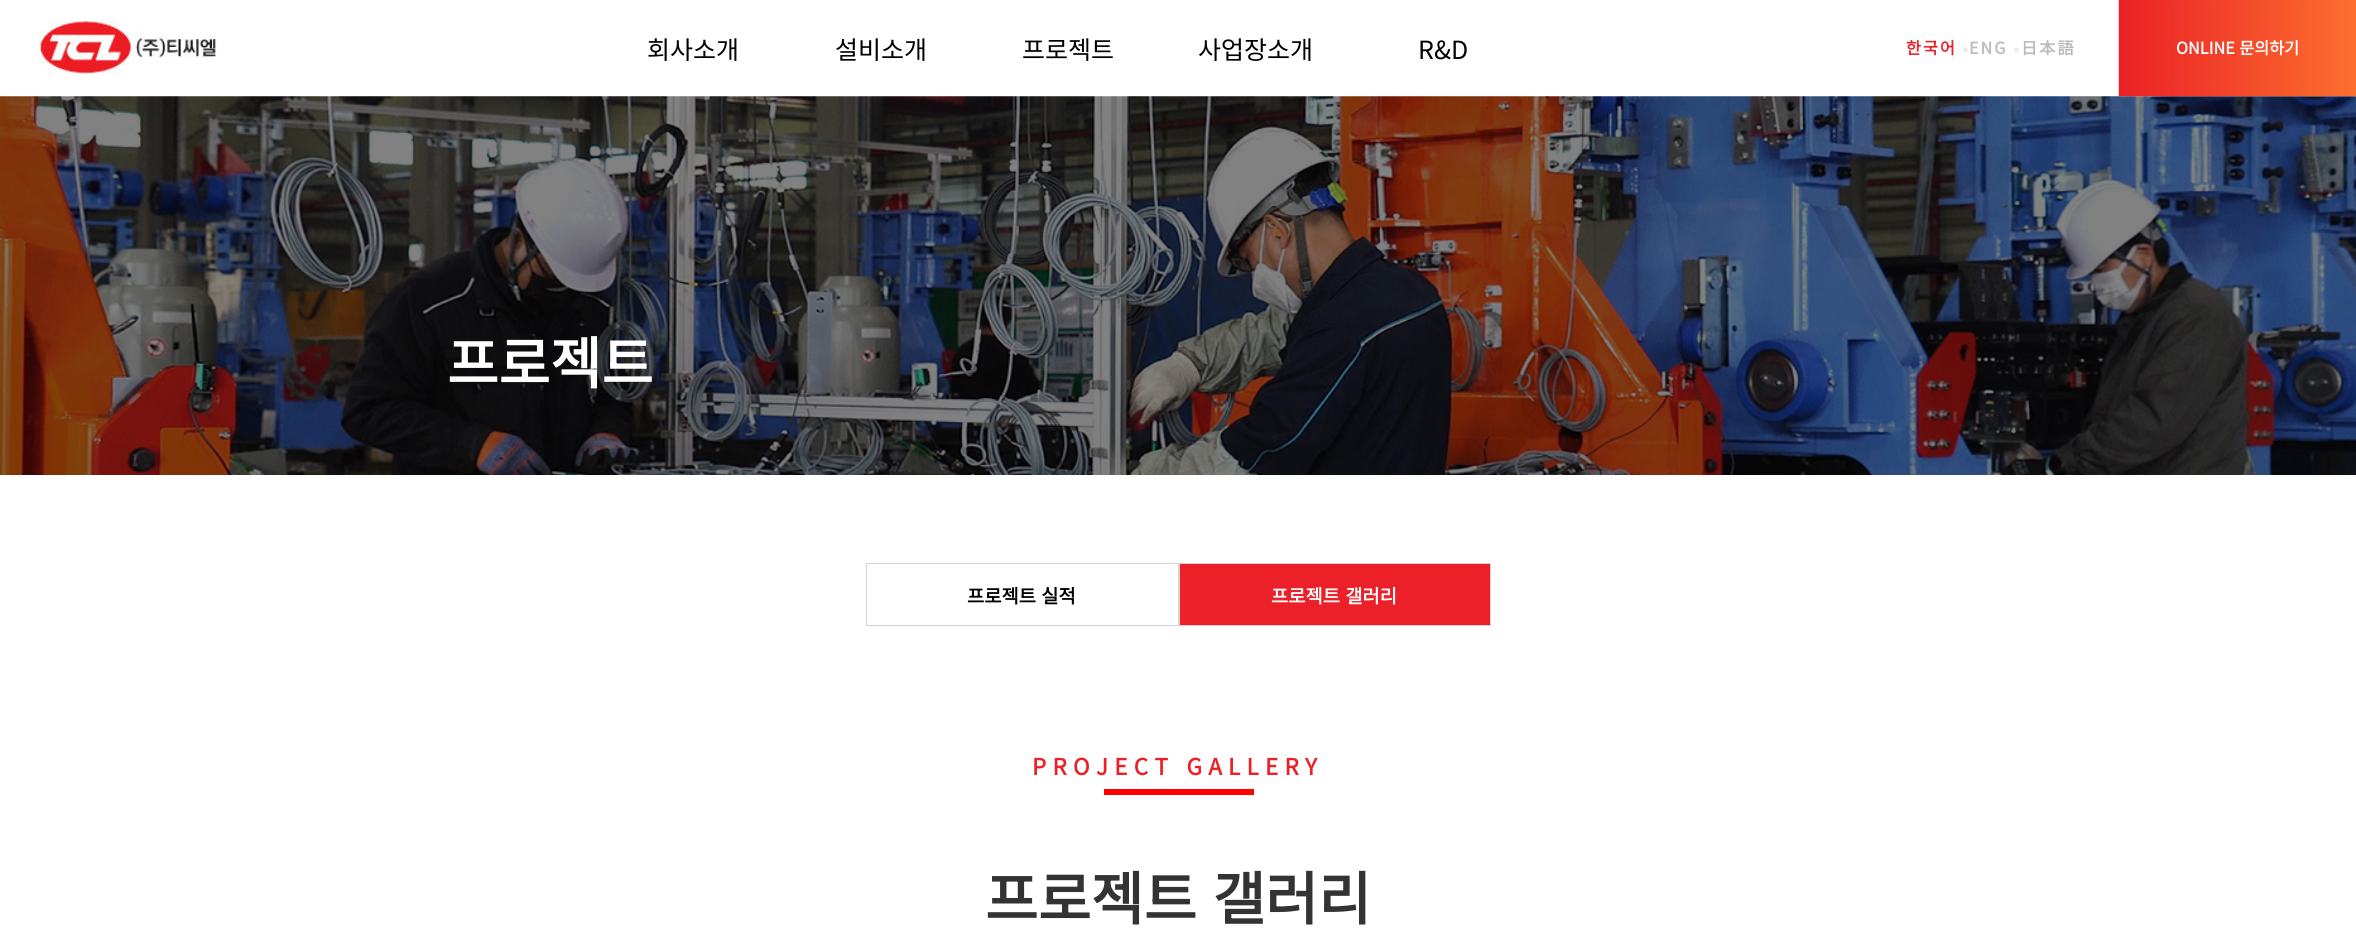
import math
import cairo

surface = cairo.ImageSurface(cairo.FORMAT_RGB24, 2356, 944)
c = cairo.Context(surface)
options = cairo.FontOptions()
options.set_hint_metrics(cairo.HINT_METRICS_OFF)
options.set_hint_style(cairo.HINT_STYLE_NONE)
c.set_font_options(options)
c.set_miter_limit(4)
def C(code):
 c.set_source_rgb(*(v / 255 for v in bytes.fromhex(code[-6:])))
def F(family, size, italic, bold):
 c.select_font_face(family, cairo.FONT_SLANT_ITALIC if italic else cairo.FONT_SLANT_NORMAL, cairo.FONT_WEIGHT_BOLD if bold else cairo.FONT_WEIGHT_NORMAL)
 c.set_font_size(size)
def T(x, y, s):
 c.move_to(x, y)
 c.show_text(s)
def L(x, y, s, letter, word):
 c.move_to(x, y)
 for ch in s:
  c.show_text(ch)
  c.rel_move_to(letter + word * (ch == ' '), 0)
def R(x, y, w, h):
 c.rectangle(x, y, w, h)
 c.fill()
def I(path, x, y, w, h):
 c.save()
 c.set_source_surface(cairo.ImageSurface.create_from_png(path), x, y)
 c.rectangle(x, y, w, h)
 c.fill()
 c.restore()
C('ffffff')
c.paint()
I('1.png',38,21,180,53)
F('Noto Sans KR Thin',25,0,0)
C('000000')
T(647,59,'회사소개')
T(835,59,'설비소개')
T(1022,59,'프로젝트')
T(1198,59,'사업장소개')
T(1418,59,'R&D')
F('Noto Sans KR',16.25,0,1)
C('ec2028')
L(1906,54,'한국어',2,0)
F('Noto Sans KR Thin',34,0,0)
C('e9e9e9')
L(1956,62,'·',4,0)
F('Noto Sans KR',16.25,0,1)
C('bbbbbb')
L(1969,54,'ENG',2,0)
F('Noto Sans KR Thin',34,0,0)
C('e9e9e9')
L(2007,62,'·',4,0)
F('Noto Sans KR',16.25,0,1)
C('bbbbbb')
L(2021,54,'日本語',2,0)
I('3.png',0,96,2356,379)
I('2.png',2118,0,238,97)
C('ffffff')
L(2176,54,'ONLINE 문의하기',0,1)
F('Noto Sans KR',56,0,1)
T(447,384,'프로젝트')
c.rectangle(866.5,563.5,312,62)
C('d3d3d3')
c.set_line_width(1)
c.stroke()
F('Noto Sans KR',18.75,0,1)
C('000000')
L(967,603,'프로젝트 실적',0,1)
C('ec2028')
c.rectangle(1179.5,563.5,311,62)
c.fill_preserve()
C('d3d3d3')
c.stroke()
C('ffffff')
L(1271,603,'프로젝트 갤러리',0,1)
F('Noto Sans KR',22.5,0,1)
C('ec2028')
L(1032,775,'PROJECT GALLERY',6.25,1)
C('ff0000')
R(1104,789,150,6)
F('Noto Sans KR',57.5,0,1)
C('333333')
L(985,920,'프로젝트 갤러리',0,3)
surface.write_to_png('o.png')
